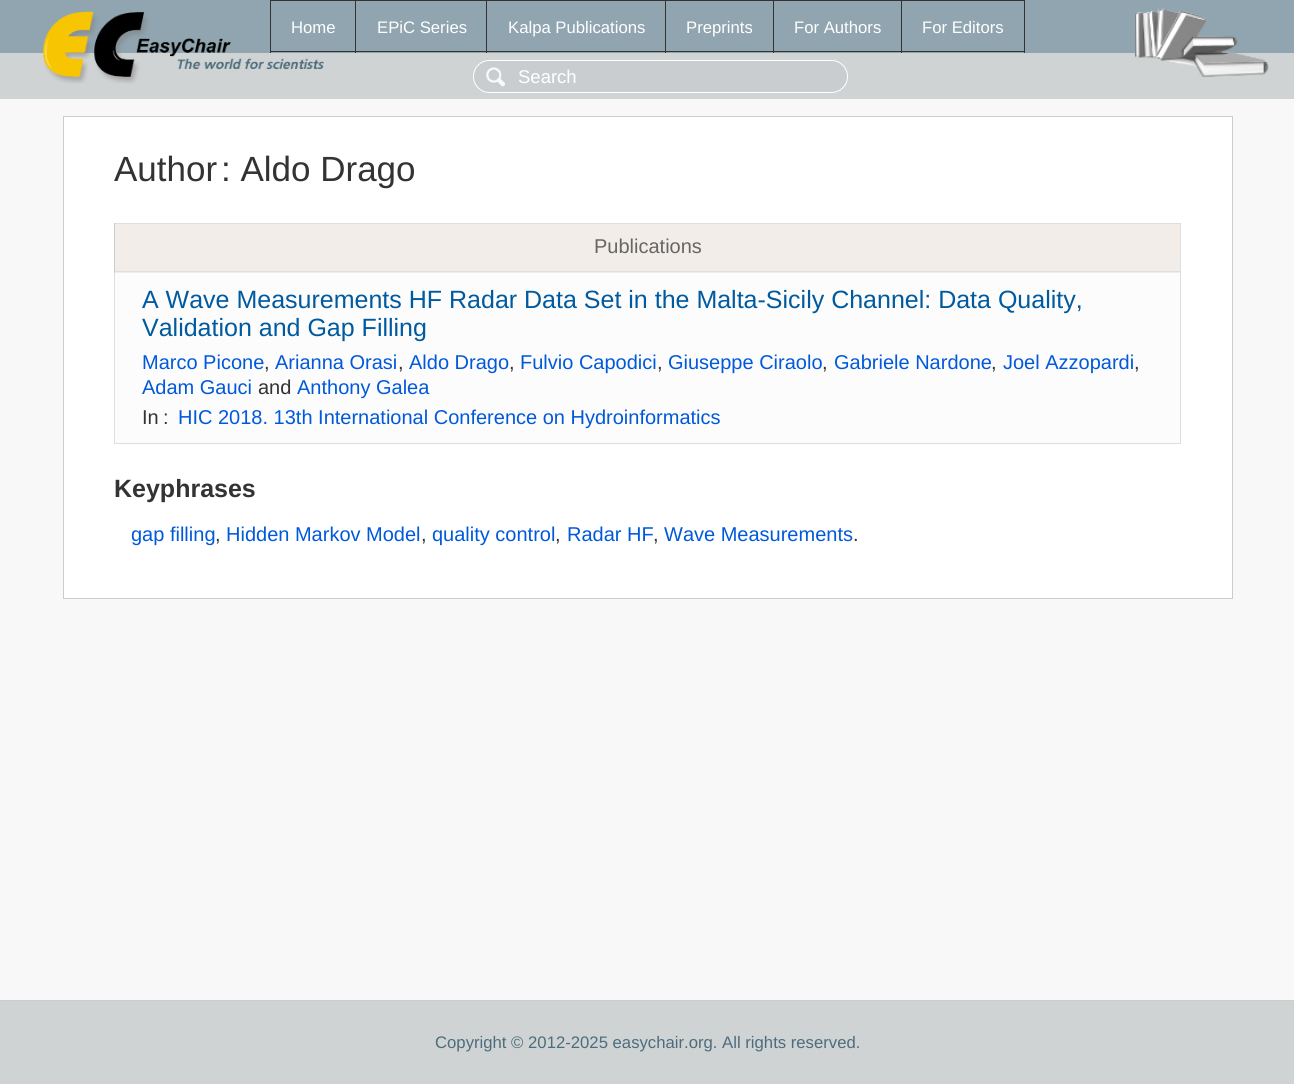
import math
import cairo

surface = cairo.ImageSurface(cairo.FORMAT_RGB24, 1294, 1084)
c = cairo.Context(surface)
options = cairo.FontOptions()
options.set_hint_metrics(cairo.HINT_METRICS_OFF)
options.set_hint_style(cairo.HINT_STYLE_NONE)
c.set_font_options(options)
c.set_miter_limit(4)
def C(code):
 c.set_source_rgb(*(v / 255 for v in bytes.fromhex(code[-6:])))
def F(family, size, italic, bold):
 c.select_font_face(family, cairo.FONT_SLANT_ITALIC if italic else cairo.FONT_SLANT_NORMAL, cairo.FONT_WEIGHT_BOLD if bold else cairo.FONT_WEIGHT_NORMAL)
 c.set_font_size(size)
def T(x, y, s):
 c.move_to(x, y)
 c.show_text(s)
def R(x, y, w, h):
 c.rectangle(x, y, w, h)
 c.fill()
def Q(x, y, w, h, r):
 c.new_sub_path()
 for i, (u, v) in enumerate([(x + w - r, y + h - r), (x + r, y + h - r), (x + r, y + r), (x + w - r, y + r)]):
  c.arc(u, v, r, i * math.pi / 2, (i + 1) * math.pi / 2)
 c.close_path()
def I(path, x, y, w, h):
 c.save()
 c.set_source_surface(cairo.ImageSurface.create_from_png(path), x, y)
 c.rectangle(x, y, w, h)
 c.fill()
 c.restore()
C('90a5b0')
c.paint()
C('d0d3d4')
R(0,53,1294,46)
I('1.png',43,11,281,73)
C('333333')
R(901,0,124,1)
R(1024,0,1,53)
R(901,51,124,1)
R(901,0,1,53)
R(773,0,130,1)
R(773,51,130,1)
R(773,0,1,53)
R(665,0,109,1)
R(665,51,109,1)
R(665,0,1,53)
R(486,0,180,1)
R(486,51,180,1)
R(486,0,1,53)
R(355,0,133,1)
R(355,51,133,1)
R(355,0,1,53)
R(270,0,86,1)
R(270,51,86,1)
R(270,0,1,53)
F('Liberation Sans',16.7,0,0)
C('ffffff')
T(291,33,'Home')
T(377,33,'EPiC Series')
T(508,33,'Kalpa Publications')
T(686,33,'Preprints')
T(794,33,'For Authors')
T(922,33,'For Editors')
I('2.png',1135,8,134,69)
C('c9cdd0')
Q(473,60,375,33,16.5)
c.fill()
I('3.png',486,67,19,20)
Q(473.5,60.5,374,32,16)
C('ffffff')
c.set_line_width(1)
c.stroke()
F('Liberation Sans',18.5,0,0)
T(518,83,'Search')
C('f8f8f8')
R(0,99,1294,901)
C('ffffff')
c.rectangle(63.5,116.5,1169,482)
c.fill_preserve()
C('cccccc')
c.stroke()
F('Liberation Sans',35,0,0)
C('333333')
T(114,181,'Author')
T(221,181,': Aldo Drago')
C('dedede')
R(114,223,1067,1)
R(1180,223,1,221)
R(114,443,1067,1)
R(114,273,1,171)
C('f2ede9')
R(115,224,1065,49)
C('dedede')
R(114,271,1067,1)
C('cccccc')
R(114,223,1,50)
F('Liberation Sans',20,0,0)
C('666666')
T(594,253,'Publications')
C('fcfcfc')
R(115,273,1065,170)
F('Liberation Sans',25,0,0)
C('005a9f')
T(142,308,'A Wave Measurements HF Radar Data Set in the Malta-Sicily Channel: Data Quality,')
T(142,336,'Validation and Gap Filling')
F('Liberation Sans',20,0,0)
C('0059db')
T(142,369,'Marco Picone')
C('333333')
T(264,369,',')
C('0059db')
T(275,369,'Arianna Orasi')
C('333333')
T(398,369,',')
C('0059db')
T(409,369,'Aldo Drago')
C('333333')
T(509,369,',')
C('0059db')
T(520,369,'Fulvio Capodici')
C('333333')
T(657,369,',')
C('0059db')
T(668,369,'Giuseppe Ciraolo')
C('333333')
T(822,369,',')
C('0059db')
T(834,369,'Gabriele Nardone')
C('333333')
T(991,369,',')
C('0059db')
T(1003,369,'Joel Azzopardi')
C('333333')
T(1134,369,',')
C('0059db')
T(142,394,'Adam Gauci')
C('333333')
T(258,394,'and')
C('0059db')
T(297,394,'Anthony Galea')
C('333333')
T(142,424,'In')
T(163,424,':')
C('0059db')
T(178,424,'HIC 2018. 13th International Conference on Hydroinformatics')
F('Liberation Sans',25,0,1)
C('333333')
T(114,497,'Keyphrases')
F('Liberation Sans',20,0,0)
C('0059db')
T(131,541,'gap filling')
C('333333')
T(215,541,',')
C('0059db')
T(226,541,'Hidden Markov Model')
C('333333')
T(421,541,',')
C('0059db')
T(432,541,'quality control')
C('333333')
T(555,541,',')
C('0059db')
T(567,541,'Radar HF')
C('333333')
T(653,541,',')
C('0059db')
T(664,541,'Wave Measurements')
C('333333')
T(853,541,'.')
C('d0d3d4')
R(0,1001,1294,83)
C('cccccc')
R(0,1000,1294,1)
F('Liberation Sans',16.7,0,0)
C('4c6c7c')
T(435,1048,'Copyright © 2012-2025 easychair.org. All rights reserved.')
surface.write_to_png('o.png')
